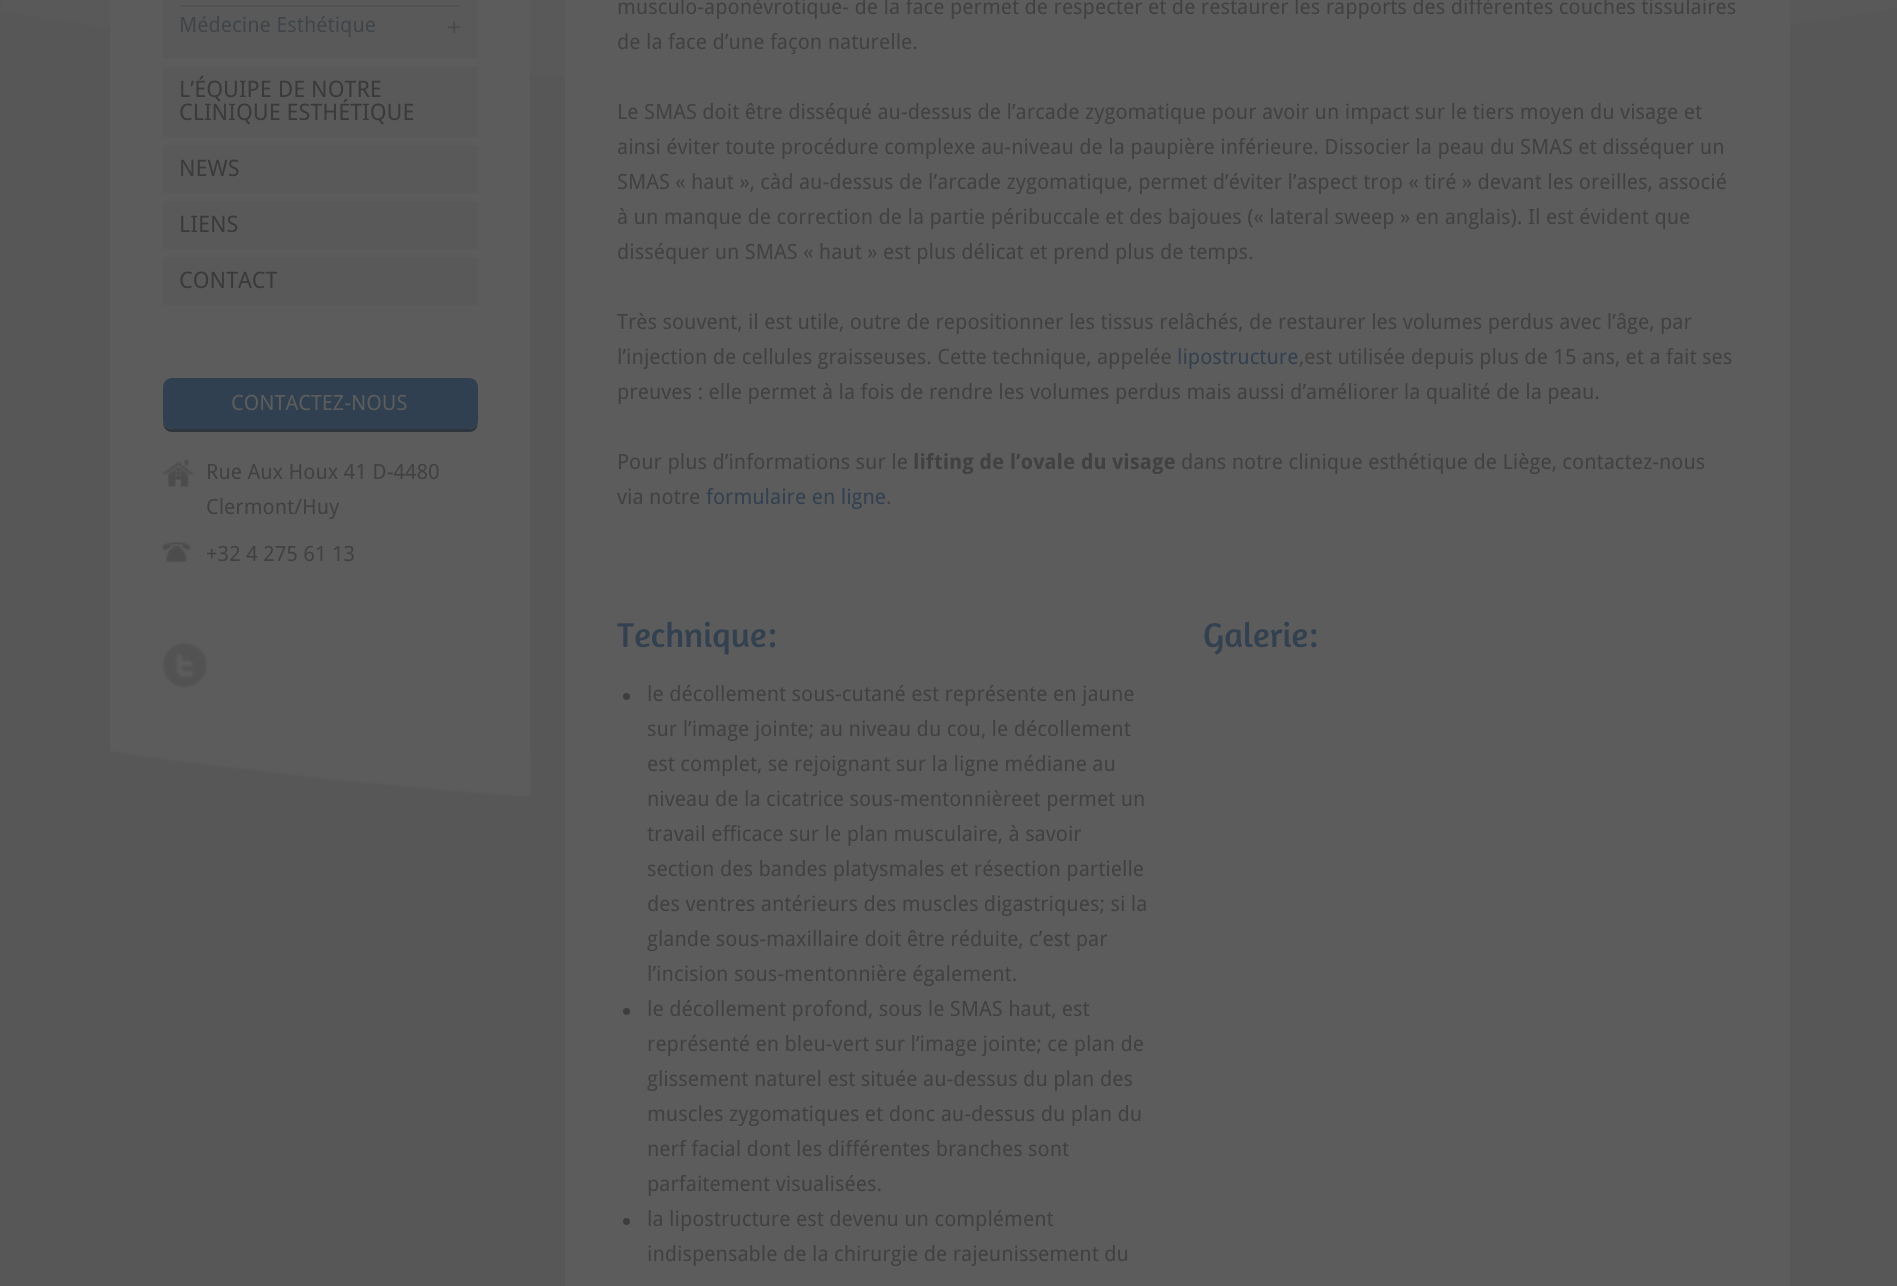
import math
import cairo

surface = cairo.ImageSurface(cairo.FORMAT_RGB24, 1897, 1286)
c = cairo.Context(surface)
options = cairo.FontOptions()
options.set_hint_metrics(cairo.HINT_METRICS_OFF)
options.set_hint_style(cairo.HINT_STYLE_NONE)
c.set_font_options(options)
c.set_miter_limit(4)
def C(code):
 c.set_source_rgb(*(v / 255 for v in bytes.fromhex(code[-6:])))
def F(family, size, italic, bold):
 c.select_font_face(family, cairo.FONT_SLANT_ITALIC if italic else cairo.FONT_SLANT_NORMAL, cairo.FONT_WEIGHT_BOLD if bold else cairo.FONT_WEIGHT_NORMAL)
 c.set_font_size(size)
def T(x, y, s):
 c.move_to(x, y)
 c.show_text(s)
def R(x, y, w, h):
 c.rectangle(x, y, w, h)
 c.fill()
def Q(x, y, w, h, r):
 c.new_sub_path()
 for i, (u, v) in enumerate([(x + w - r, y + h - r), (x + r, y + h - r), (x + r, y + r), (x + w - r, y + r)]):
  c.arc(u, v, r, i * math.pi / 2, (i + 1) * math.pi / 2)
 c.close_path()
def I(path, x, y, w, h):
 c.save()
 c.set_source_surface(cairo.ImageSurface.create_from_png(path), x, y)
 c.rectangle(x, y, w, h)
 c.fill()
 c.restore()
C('575757')
c.paint()
I('1.png',2,0,1895,78)
C('5c5c5c')
R(110,0,420,751)
C('595959')
R(163,0,315,58)
C('535353')
R(180,5,280,2)
I('2.png',448,21,13,13)
F('Droid Sans',21,0,0)
C('404549')
T(179,32,'Médecine Esthétique')
C('595959')
R(163,67,315,70)
F('Droid Sans',22.75,0,0)
C('3a3a3a')
T(179,97,'L’ÉQUIPE DE NOTRE')
T(179,120,'CLINIQUE ESTHÉTIQUE')
C('595959')
R(163,145,315,48)
C('3a3a3a')
T(179,176,'NEWS')
C('595959')
R(163,201,315,48)
C('3a3a3a')
T(179,232,'LIENS')
C('595959')
R(163,257,315,48)
C('3a3a3a')
T(179,288,'CONTACT')
C('2f353c')
c.new_path()
c.move_to(163,422)
c.curve_to(163,427,166,432,172,432)
c.line_to(469,432)
c.curve_to(480,432,478,419,478,412)
c.line_to(478,389)
c.line_to(478,420)
c.curve_to(478,425,474,429,469,429)
c.line_to(172,429)
c.curve_to(167,429,164,426,163,422)
c.close_path()
c.fill()
C('314050')
Q(163,378,315,51,9)
c.fill()
F('Droid Sans',21,0,0)
C('5c5c5c')
T(231,410,'CONTACTEZ-NOUS')
I('3.png',162,460,32,27)
C('414141')
T(206,479,'Rue Aux Houx 41 D-4480')
T(206,514,'Clermont/Huy')
I('4.png',162,542,29,21)
T(206,561,'+32 4 275 61 13')
I('5.png',162,642,45,46)
I('6.png',110,751,421,46)
C('5c5c5c')
R(565,0,1225,1286)
C('414141')
T(617,14,'musculo-aponévrotique- de la face permet de respecter et de restaurer les rapports des différentes couches tissulaires')
T(617,49,'de la face d’une façon naturelle.')
T(617,119,'Le SMAS doit être disséqué au-dessus de l’arcade zygomatique pour avoir un impact sur le tiers moyen du visage et')
T(617,154,'ainsi éviter toute procédure complexe au-niveau de la paupière inférieure. Dissocier la peau du SMAS et disséquer un')
T(617,189,'SMAS « haut », càd au-dessus de l’arcade zygomatique, permet d’éviter l’aspect trop « tiré » devant les oreilles, associé')
T(617,224,'à un manque de correction de la partie péribuccale et des bajoues (« lateral sweep » en anglais). Il est évident que')
T(617,259,'disséquer un SMAS « haut » est plus délicat et prend plus de temps.')
T(617,329,'Très souvent, il est utile, outre de repositionner les tissus relâchés, de restaurer les volumes perdus avec l’âge, par')
T(617,364,'l’injection de cellules graisseuses. Cette technique, appelée')
C('324050')
T(1177,364,'lipostructure')
C('414141')
T(1299,364,',est utilisée depuis plus de 15 ans, et a fait ses')
T(617,399,'preuves : elle permet à la fois de rendre les volumes perdus mais aussi d’améliorer la qualité de la peau.')
T(617,469,'Pour plus d’informations sur le')
F('Droid Sans',21,0,1)
T(913,469,'lifting de l’ovale du visage')
F('Droid Sans',21,0,0)
T(1181,469,'dans notre clinique esthétique de Liège, contactez-nous')
T(617,504,'via notre')
C('324050')
T(706,504,'formulaire en ligne')
C('414141')
T(886,504,'.')
F('Amaranth',35,0,0)
C('324050')
T(617,647,'Technique:')
C('3d3d3d')
c.new_path()
c.arc(626.5,696.5,3.5,0,2 * math.pi)
c.fill()
F('Droid Sans',21,0,0)
C('414141')
T(647,701,'le décollement sous-cutané est représente en jaune')
T(647,736,'sur l’image jointe; au niveau du cou, le décollement')
T(647,771,'est complet, se rejoignant sur la ligne médiane au')
T(647,806,'niveau de la cicatrice sous-mentonnièreet permet un')
T(647,841,'travail efficace sur le plan musculaire, à savoir')
T(647,876,'section des bandes platysmales et résection partielle')
T(647,911,'des ventres antérieurs des muscles digastriques; si la')
T(647,946,'glande sous-maxillaire doit être réduite, c’est par')
T(647,981,'l’incision sous-mentonnière également.')
C('3d3d3d')
c.new_path()
c.arc(626.5,1011.5,3.5,0,2 * math.pi)
c.fill()
C('414141')
T(647,1016,'le décollement profond, sous le SMAS haut, est')
T(647,1051,'représenté en bleu-vert sur l’image jointe; ce plan de')
T(647,1086,'glissement naturel est située au-dessus du plan des')
T(647,1121,'muscles zygomatiques et donc au-dessus du plan du')
T(647,1156,'nerf facial dont les différentes branches sont')
T(647,1191,'parfaitement visualisées.')
C('3d3d3d')
c.new_path()
c.arc(626.5,1221.5,3.5,0,2 * math.pi)
c.fill()
C('414141')
T(647,1226,'la lipostructure est devenu un complément')
T(647,1261,'indispensable de la chirurgie de rajeunissement du')
F('Amaranth',35,0,0)
C('324050')
T(1203,647,'Galerie:')
surface.write_to_png('o.png')
